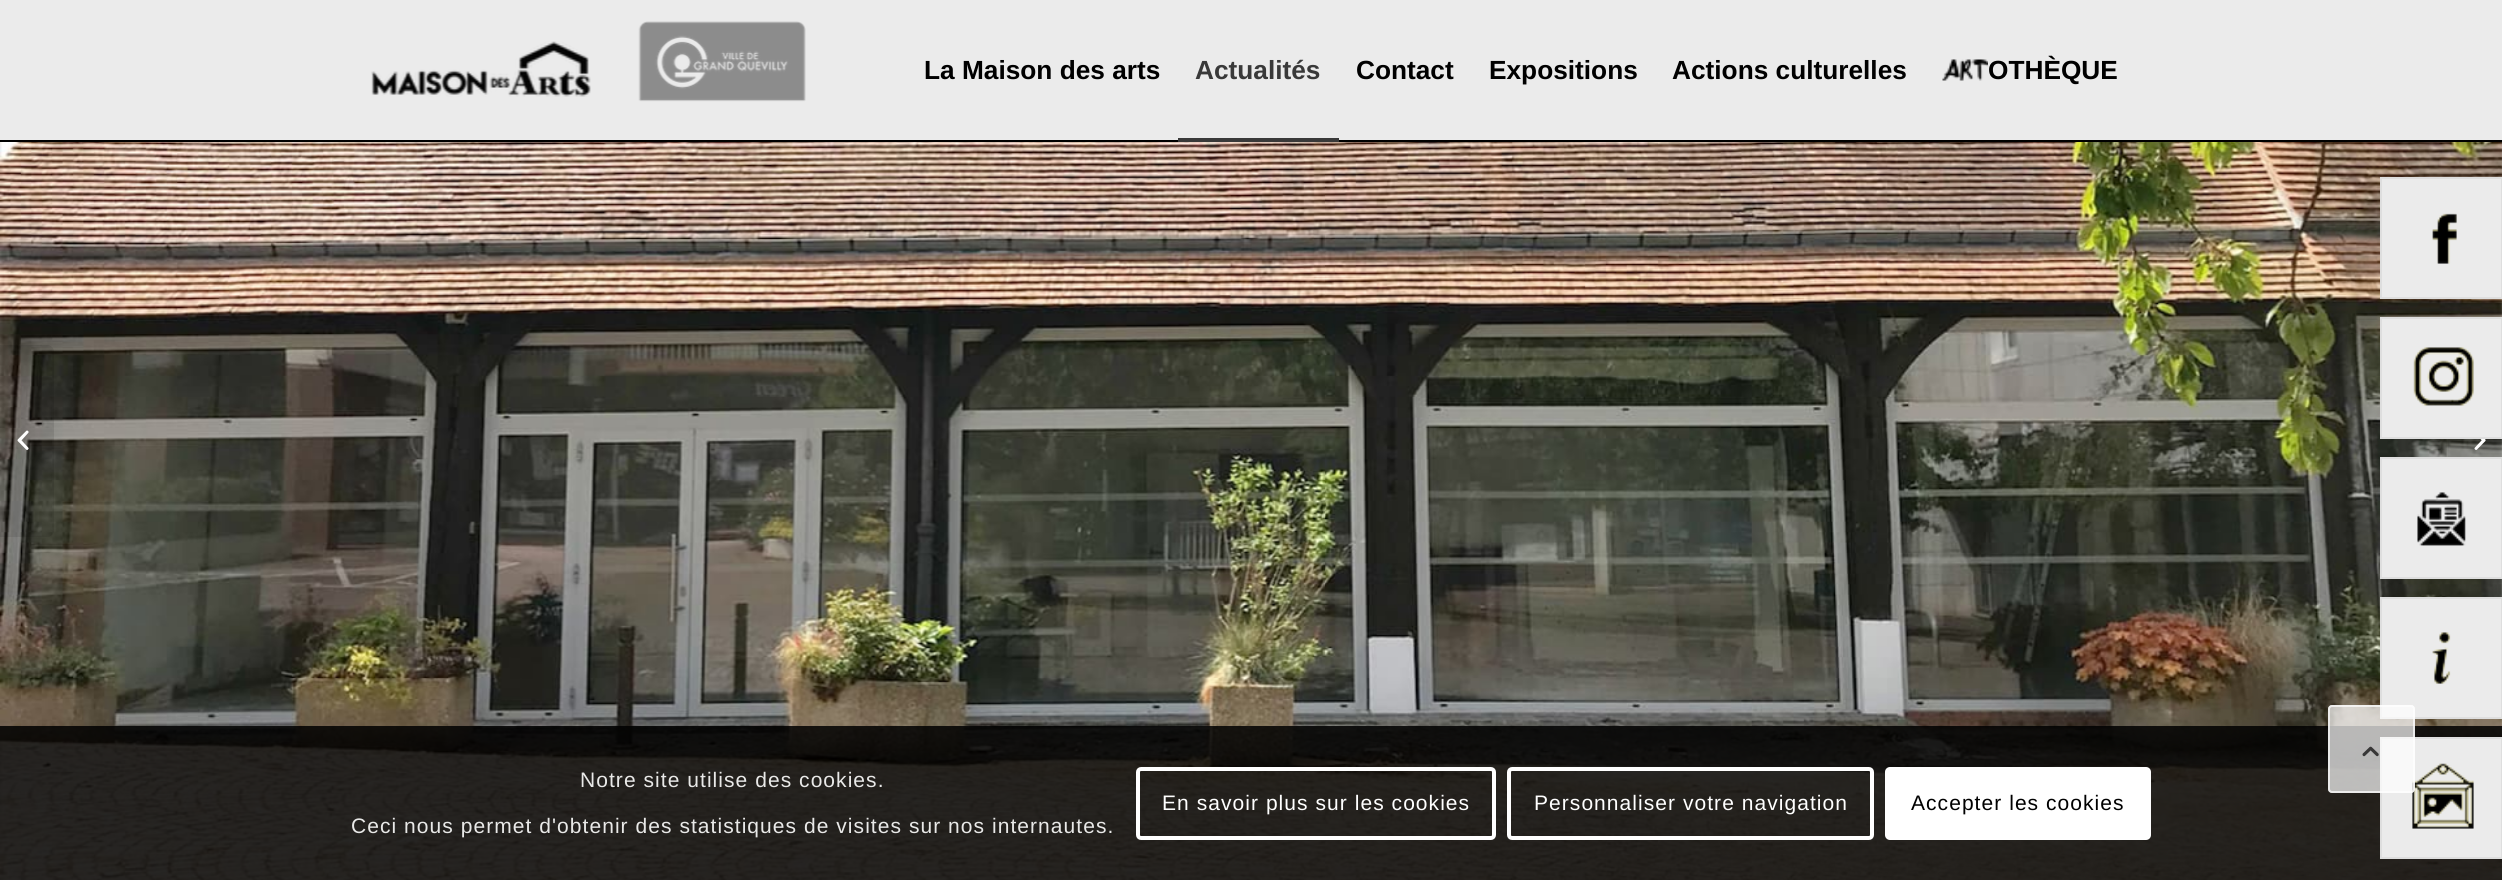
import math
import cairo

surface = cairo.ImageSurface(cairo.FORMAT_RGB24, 2502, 880)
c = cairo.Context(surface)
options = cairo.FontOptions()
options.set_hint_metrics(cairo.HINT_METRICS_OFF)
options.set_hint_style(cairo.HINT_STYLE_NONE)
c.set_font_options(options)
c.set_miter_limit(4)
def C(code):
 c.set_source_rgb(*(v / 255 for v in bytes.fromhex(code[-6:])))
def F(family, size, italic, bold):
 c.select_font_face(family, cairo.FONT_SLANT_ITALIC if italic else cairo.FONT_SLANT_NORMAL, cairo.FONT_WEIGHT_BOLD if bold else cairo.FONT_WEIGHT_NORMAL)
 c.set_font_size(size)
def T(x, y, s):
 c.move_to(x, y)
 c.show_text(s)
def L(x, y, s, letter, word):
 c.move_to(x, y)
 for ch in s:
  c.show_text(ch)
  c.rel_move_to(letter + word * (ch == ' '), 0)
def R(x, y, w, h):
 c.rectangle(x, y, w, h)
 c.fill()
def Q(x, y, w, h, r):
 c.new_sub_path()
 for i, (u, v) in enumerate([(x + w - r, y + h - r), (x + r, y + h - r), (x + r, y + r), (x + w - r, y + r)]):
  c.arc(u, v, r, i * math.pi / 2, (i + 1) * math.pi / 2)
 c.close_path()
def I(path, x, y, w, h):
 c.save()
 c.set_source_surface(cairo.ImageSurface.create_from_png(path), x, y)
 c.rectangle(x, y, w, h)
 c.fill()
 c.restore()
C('ffffff')
c.paint()
C('ebebeb')
R(0,0,2502,140)
C('000000')
R(0,140,2502,2)
I('1.png',371,41,220,56)
I('2.png',638,21,168,81)
F('Liberation Sans',26.25,0,1)
T(924,79,'La Maison des arts')
C('393939')
T(1195,79,'Actualités')
R(1178,138,161,4)
C('000000')
T(1356,79,'Contact')
T(1489,79,'Expositions')
T(1672,79,'Actions culturelles')
I('3.png',1942,59,46,22)
T(1988,79,'OTHÈQUE')
I('4.png',0,142,2502,738)
C('ebebeb')
c.rectangle(2381,178,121,120)
c.fill_preserve()
C('dedede')
c.stroke()
I('5.png',2432,213,25,51)
C('ebebeb')
c.rectangle(2381,318,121,120)
c.fill_preserve()
C('dedede')
c.stroke()
I('6.png',2413,347,61,59)
C('ebebeb')
c.rectangle(2381,458,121,120)
c.fill_preserve()
C('dedede')
c.stroke()
I('7.png',2417,492,49,54)
C('ebebeb')
c.rectangle(2381,598,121,120)
c.fill_preserve()
C('dedede')
c.stroke()
I('8.png',2432,632,19,52)
c.set_source_rgba(0,0,0,0.85)
R(0,726,2502,154)
C('ebebeb')
c.rectangle(2381,738,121,120)
c.fill_preserve()
C('dedede')
c.stroke()
I('9.png',2412,763,62,66)
c.set_source_rgba(0,0,0,0.1)
c.new_path()
c.move_to(0,345)
c.line_to(47,345)
c.curve_to(51,345,54,348,54,352)
c.line_to(54,530)
c.curve_to(54,534,51,537,47,537)
c.line_to(0,537)
c.close_path()
c.fill()
I('10.png',17,430,12,20)
R(2448,439,54,18)
I('11.png',2474,439,12,11)
c.set_source_rgba(1,1,1,0.7)
Q(2328,705,87,88,4)
c.fill()
Q(2329,706,85,86,3)
c.stroke()
I('12.png',2362,746,17,11)
F('Liberation Sans',21,0,0)
C('e9e9e8')
L(580,787,'Notre site utilise des cookies.',1.05,0)
L(351,833,'Ceci nous permet d\'obtenir des statistiques de visites sur nos internautes.',1.05,0)
Q(1138,769,356,69,3)
C('ffffff')
c.set_line_width(4)
c.stroke()
L(1162,810,'En savoir plus sur les cookies',1.05,0)
Q(1509,769,363,69,3)
c.stroke()
L(1534,810,'Personnaliser votre navigation',1.05,0)
Q(1885,767,266,73,5)
c.fill()
C('000000')
L(1911,810,'Accepter les cookies',1.05,0)
surface.write_to_png('o.png')
